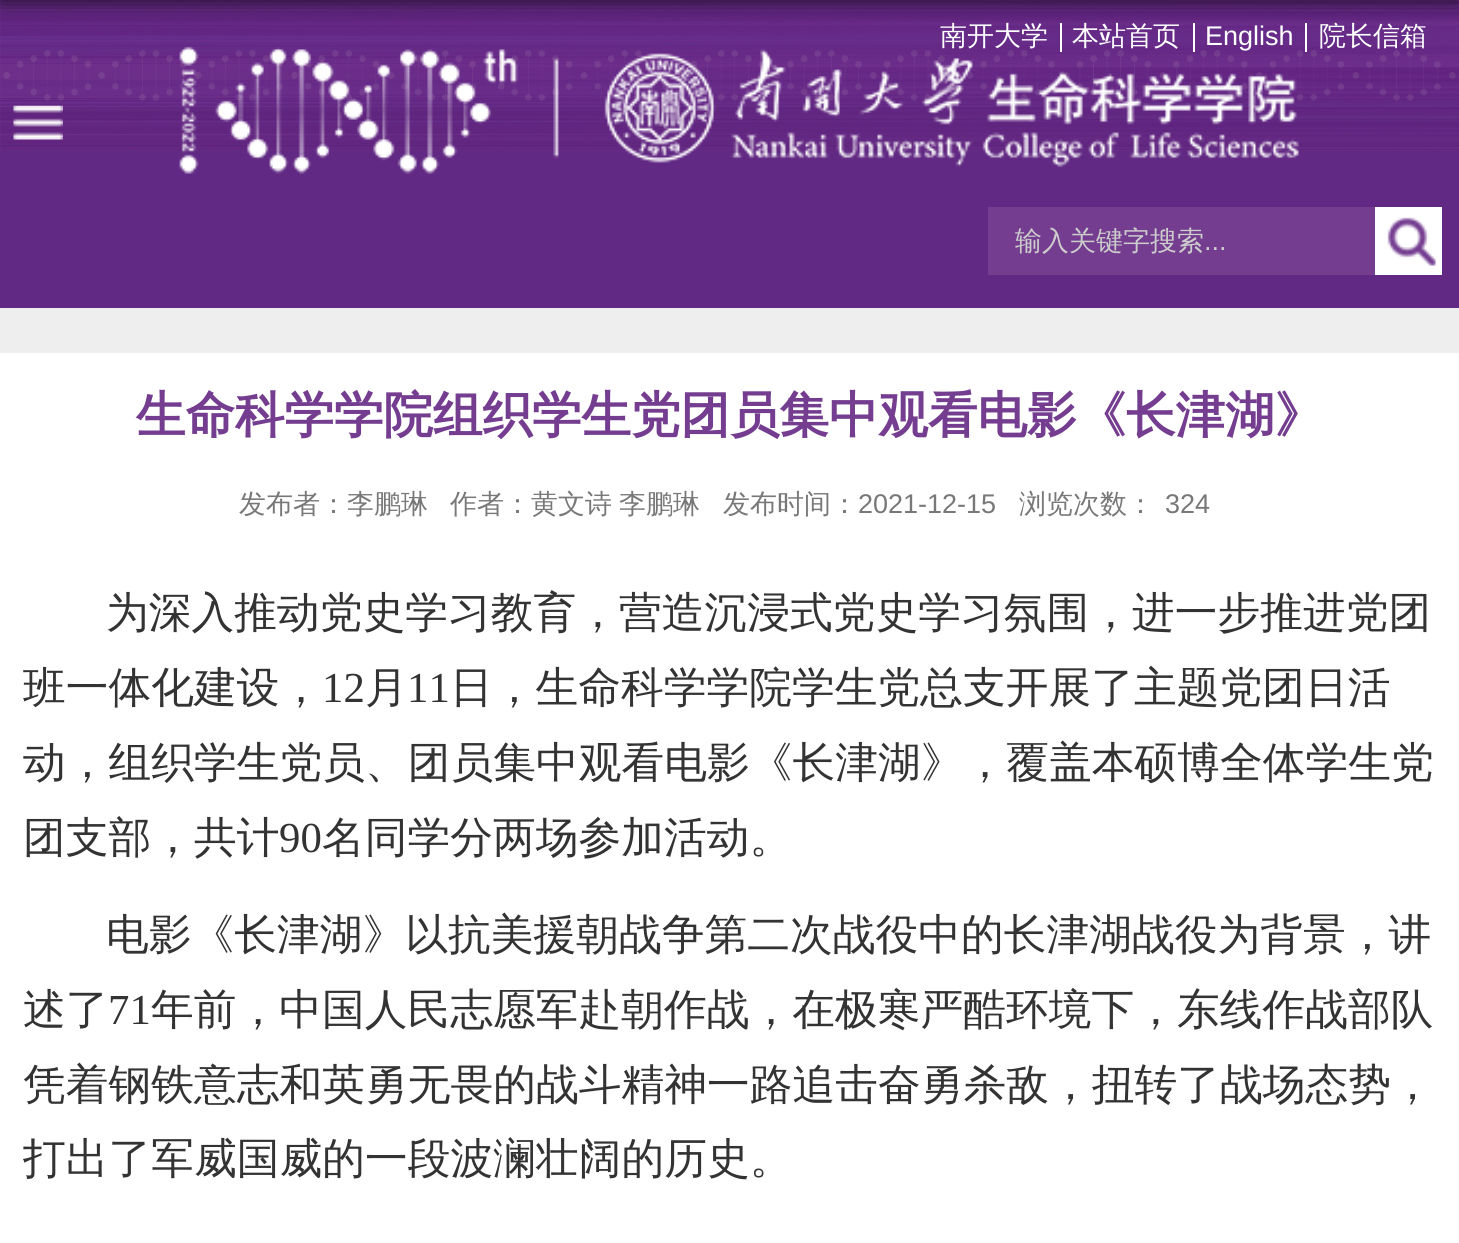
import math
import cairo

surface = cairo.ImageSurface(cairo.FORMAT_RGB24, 1459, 1243)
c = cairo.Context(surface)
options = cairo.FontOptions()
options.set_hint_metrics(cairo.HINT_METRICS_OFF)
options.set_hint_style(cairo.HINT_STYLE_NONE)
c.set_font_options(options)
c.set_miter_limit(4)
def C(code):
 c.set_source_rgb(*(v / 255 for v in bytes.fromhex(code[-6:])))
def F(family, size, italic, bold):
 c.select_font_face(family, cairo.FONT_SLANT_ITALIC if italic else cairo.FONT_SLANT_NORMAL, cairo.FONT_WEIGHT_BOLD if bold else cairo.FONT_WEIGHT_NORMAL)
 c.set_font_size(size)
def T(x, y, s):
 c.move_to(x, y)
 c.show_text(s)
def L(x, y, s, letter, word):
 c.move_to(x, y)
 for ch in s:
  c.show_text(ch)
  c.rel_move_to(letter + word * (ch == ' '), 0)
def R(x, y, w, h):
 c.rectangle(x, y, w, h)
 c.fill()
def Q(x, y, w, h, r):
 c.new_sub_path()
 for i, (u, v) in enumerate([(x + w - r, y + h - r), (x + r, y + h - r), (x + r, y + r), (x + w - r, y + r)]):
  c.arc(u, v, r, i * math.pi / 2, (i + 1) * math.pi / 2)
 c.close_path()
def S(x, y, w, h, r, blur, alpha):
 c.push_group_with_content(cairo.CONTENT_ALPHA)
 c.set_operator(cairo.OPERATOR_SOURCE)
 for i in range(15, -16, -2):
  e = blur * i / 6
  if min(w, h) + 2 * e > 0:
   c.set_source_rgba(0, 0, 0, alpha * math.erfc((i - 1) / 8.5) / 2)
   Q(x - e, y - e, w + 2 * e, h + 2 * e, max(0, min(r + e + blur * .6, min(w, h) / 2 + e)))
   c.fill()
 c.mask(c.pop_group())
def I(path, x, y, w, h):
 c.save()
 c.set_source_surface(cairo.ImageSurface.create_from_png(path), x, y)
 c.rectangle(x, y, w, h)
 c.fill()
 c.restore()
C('ffffff')
c.paint()
C('612983')
R(0,150,1459,158)
I('1.png',0,0,1459,151)
I('4.png',179,46,1120,128)
C('ffffff')
R(1060,23,2,29)
R(1193,23,2,29)
R(1305,23,2,29)
C('000000')
S(0,-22,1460,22,0,11,.8)
F('WenQuanYi Zen Hei Medium',27,0,0)
C('ffffff')
T(940,45,'南开大学')
T(1072,45,'本站首页')
F('Liberation Sans',27,0,0)
T(1205,45,'English')
F('WenQuanYi Zen Hei Medium',27,0,0)
T(1319,45,'院长信箱')
C('743d90')
R(988,207,387,68)
C('cccccc')
T(1015,250,'输入关键字搜索')
F('Liberation Sans',27,0,0)
T(1204,250,'...')
C('ffffff')
R(1375,207,67,68)
I('2.png',1387,217,49,49)
I('3.png',13,105,50,35)
C('eeeeee')
R(0,308,1459,45)
F('WenQuanYi Zen Hei',49.5,0,1)
C('743d90')
T(136,432,'生命科学学院组织学生党团员集中观看电影《长津湖》')
F('WenQuanYi Zen Hei Medium',27,0,0)
C('787878')
T(239,513,'发布者：李鹏琳')
L(450,513,'作者：黄文诗 李鹏琳',0,-1)
T(723,513,'发布时间：')
F('Liberation Sans',27,0,0)
T(858,513,'2021-12-15')
F('WenQuanYi Zen Hei Medium',27,0,0)
T(1019,513,'浏览次数：')
F('Liberation Sans',27,0,0)
T(1165,513,'324')
F('WenQuanYi Zen Hei Medium',42.75,0,0)
C('333333')
T(106,627,'为深入推动党史学习教育，营造沉浸式党史学习氛围，进一步推进党团')
c.save()
c.rectangle(23,576,1415,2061)
c.clip()
T(23,702,'班一体化建设，')
c.restore()
F('Liberation Serif',42.75,0,0)
T(322,702,'12')
F('WenQuanYi Zen Hei Medium',42.75,0,0)
T(365,702,'月')
F('Liberation Serif',42.75,0,0)
T(407,702,'11')
F('WenQuanYi Zen Hei Medium',42.75,0,0)
T(450,702,'日，生命科学学院学生党总支开展了主题党团日活')
c.save()
c.rectangle(23,576,1415,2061)
c.clip()
T(23,777,'动，组织学生党员、团员集中观看电影《长津湖》，覆盖本硕博全体学生党')
c.restore()
T(23,852,'团支部，共计')
F('Liberation Serif',42.75,0,0)
T(279,852,'90')
F('WenQuanYi Zen Hei Medium',42.75,0,0)
T(322,852,'名同学分两场参加活动。')
T(106,949,'电影《长津湖》以抗美援朝战争第二次战役中的长津湖战役为背景，讲')
T(23,1024,'述了')
F('Liberation Serif',42.75,0,0)
T(108,1024,'71')
F('WenQuanYi Zen Hei Medium',42.75,0,0)
T(151,1024,'年前，中国人民志愿军赴朝作战，在极寒严酷环境下，东线作战部队')
T(23,1099,'凭着钢铁意志和英勇无畏的战斗精神一路追击奋勇杀敌，扭转了战场态势，')
c.save()
c.rectangle(23,576,1415,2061)
c.clip()
T(23,1173,'打出了军威国威的一段波澜壮阔的历史。')
c.restore()
surface.write_to_png('o.png')
